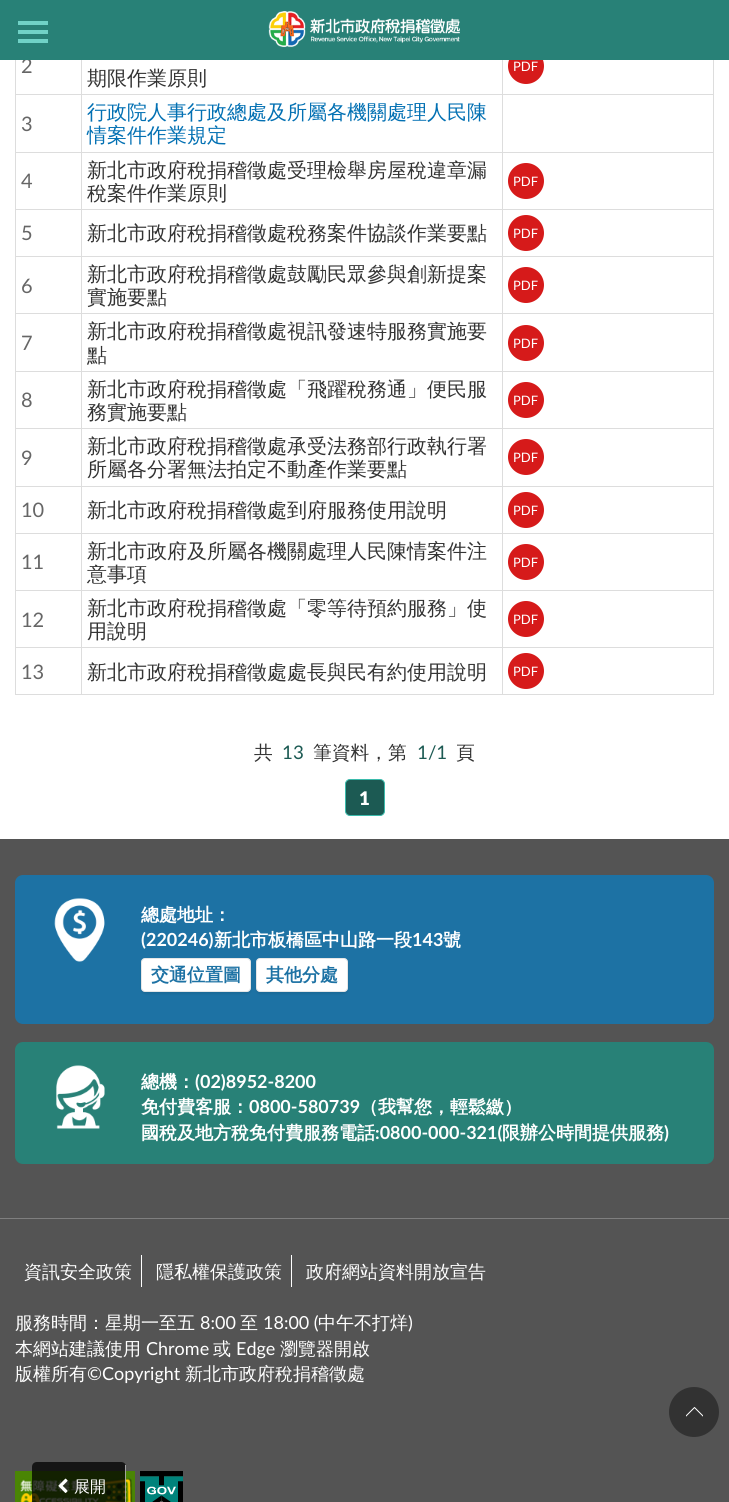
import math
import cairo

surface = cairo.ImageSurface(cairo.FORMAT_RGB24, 729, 1502)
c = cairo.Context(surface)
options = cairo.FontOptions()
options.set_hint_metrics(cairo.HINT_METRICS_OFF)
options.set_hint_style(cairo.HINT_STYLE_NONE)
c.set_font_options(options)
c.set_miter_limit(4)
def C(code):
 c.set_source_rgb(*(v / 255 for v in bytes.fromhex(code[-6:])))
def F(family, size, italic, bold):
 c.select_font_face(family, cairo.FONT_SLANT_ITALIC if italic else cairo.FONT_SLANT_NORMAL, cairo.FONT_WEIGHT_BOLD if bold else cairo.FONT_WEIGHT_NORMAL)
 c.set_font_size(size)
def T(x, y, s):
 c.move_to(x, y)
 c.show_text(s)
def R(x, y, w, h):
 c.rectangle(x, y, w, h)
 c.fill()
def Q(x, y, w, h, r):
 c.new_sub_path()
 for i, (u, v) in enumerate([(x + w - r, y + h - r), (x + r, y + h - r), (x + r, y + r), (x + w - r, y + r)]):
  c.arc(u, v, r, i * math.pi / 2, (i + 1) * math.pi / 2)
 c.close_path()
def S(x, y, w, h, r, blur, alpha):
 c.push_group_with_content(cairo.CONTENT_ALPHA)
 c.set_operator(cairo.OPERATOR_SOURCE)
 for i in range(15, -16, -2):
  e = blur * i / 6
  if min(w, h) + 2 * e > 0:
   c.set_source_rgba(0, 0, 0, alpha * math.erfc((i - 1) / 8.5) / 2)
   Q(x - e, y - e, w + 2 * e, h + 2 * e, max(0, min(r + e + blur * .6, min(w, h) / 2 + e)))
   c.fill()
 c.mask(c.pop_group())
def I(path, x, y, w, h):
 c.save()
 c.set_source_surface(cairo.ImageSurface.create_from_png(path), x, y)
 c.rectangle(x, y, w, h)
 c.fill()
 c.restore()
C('ffffff')
c.paint()
F('Lato',20,0,0)
C('666666')
T(21,73,'2')
C('d61a1a')
c.new_path()
c.arc(526,66,18,0,2 * math.pi)
c.fill()
C('288177')
R(0,0,729,60)
C('70d2c7')
R(18,21,30,4)
R(18,30,30,4)
R(18,39,30,4)
I('1.png',268,11,192,37)
C('dddddd')
R(502,94,212,1)
R(502,152,212,1)
R(502,209,212,1)
R(502,256,212,1)
R(502,313,212,1)
R(502,371,212,1)
R(502,428,212,1)
R(502,486,212,1)
R(502,533,212,1)
R(502,590,212,1)
R(502,647,212,1)
R(713,647,1,48)
R(502,694,212,1)
R(502,647,1,48)
R(81,647,422,1)
R(502,590,1,58)
R(81,590,422,1)
R(502,533,1,58)
R(81,533,422,1)
R(502,486,1,48)
R(81,486,422,1)
R(502,428,1,59)
R(81,428,422,1)
R(502,371,1,58)
R(81,371,422,1)
R(502,313,1,59)
R(81,313,422,1)
R(502,256,1,58)
R(81,256,422,1)
R(502,209,1,48)
R(81,209,422,1)
R(502,152,1,58)
R(81,152,422,1)
R(502,94,1,59)
R(81,94,422,1)
R(502,60,1,35)
F('Lato',13,0,0)
C('ffffff')
T(513,71,'PDF')
C('dddddd')
R(81,694,422,1)
R(81,647,1,48)
R(15,647,67,1)
R(81,590,1,58)
R(15,590,67,1)
R(81,533,1,58)
R(15,533,67,1)
R(81,486,1,48)
R(15,486,67,1)
R(81,428,1,59)
R(15,428,67,1)
R(81,371,1,58)
R(15,371,67,1)
R(81,313,1,59)
R(15,313,67,1)
R(81,256,1,58)
R(15,256,67,1)
R(81,209,1,48)
R(15,209,67,1)
R(81,152,1,58)
R(15,152,67,1)
R(81,94,1,59)
R(15,94,67,1)
R(81,60,1,35)
F('WenQuanYi Zen Hei Medium',20,0,0)
C('333333')
T(87,85,'期限作業原則')
C('dddddd')
R(15,694,67,1)
R(15,647,1,48)
R(15,590,1,58)
R(15,533,1,58)
R(15,486,1,48)
R(15,428,1,59)
R(15,371,1,58)
R(15,313,1,59)
R(15,256,1,58)
R(15,209,1,48)
R(15,152,1,58)
R(15,60,1,93)
F('Lato',20,0,0)
C('666666')
T(21,131,'3')
F('WenQuanYi Zen Hei Medium',20,0,0)
C('0270b3')
T(87,119,'行政院人事行政總處及所屬各機關處理人民陳')
T(87,142,'情案件作業規定')
C('dddddd')
R(713,590,1,58)
R(713,533,1,58)
R(713,486,1,48)
R(713,428,1,59)
R(713,371,1,58)
R(713,313,1,59)
R(713,256,1,58)
R(713,209,1,48)
R(713,152,1,58)
R(713,60,1,93)
F('Lato',20,0,0)
C('666666')
T(21,188,'4')
F('WenQuanYi Zen Hei Medium',20,0,0)
C('333333')
T(87,177,'新北市政府稅捐稽徵處受理檢舉房屋稅違章漏')
T(87,200,'稅案件作業原則')
C('d61a1a')
c.new_path()
c.arc(526,181,18,0,2 * math.pi)
c.fill()
F('Lato',13,0,0)
C('ffffff')
T(513,186,'PDF')
F('Lato',20,0,0)
C('666666')
T(21,240,'5')
F('WenQuanYi Zen Hei Medium',20,0,0)
C('333333')
T(87,240,'新北市政府稅捐稽徵處稅務案件協談作業要點')
C('d61a1a')
c.new_path()
c.arc(526,233,18,0,2 * math.pi)
c.fill()
F('Lato',13,0,0)
C('ffffff')
T(513,238,'PDF')
F('Lato',20,0,0)
C('666666')
T(21,293,'6')
F('WenQuanYi Zen Hei Medium',20,0,0)
C('333333')
T(87,281,'新北市政府稅捐稽徵處鼓勵民眾參與創新提案')
T(87,304,'實施要點')
C('d61a1a')
c.new_path()
c.arc(526,285,18,0,2 * math.pi)
c.fill()
F('Lato',13,0,0)
C('ffffff')
T(513,290,'PDF')
F('Lato',20,0,0)
C('666666')
T(21,350,'7')
F('WenQuanYi Zen Hei Medium',20,0,0)
C('333333')
T(87,338,'新北市政府稅捐稽徵處視訊發速特服務實施要')
T(87,362,'點')
C('d61a1a')
c.new_path()
c.arc(526,343,18,0,2 * math.pi)
c.fill()
F('Lato',13,0,0)
C('ffffff')
T(513,348,'PDF')
F('Lato',20,0,0)
C('666666')
T(21,407,'8')
F('WenQuanYi Zen Hei Medium',20,0,0)
C('333333')
T(87,396,'新北市政府稅捐稽徵處「飛躍稅務通」便民服')
T(87,419,'務實施要點')
C('d61a1a')
c.new_path()
c.arc(526,400,18,0,2 * math.pi)
c.fill()
F('Lato',13,0,0)
C('ffffff')
T(513,405,'PDF')
F('Lato',20,0,0)
C('666666')
T(21,465,'9')
F('WenQuanYi Zen Hei Medium',20,0,0)
C('333333')
T(87,453,'新北市政府稅捐稽徵處承受法務部行政執行署')
T(87,476,'所屬各分署無法拍定不動產作業要點')
C('d61a1a')
c.new_path()
c.arc(526,457,18,0,2 * math.pi)
c.fill()
F('Lato',13,0,0)
C('ffffff')
T(513,462,'PDF')
F('Lato',20,0,0)
C('666666')
T(21,517,'10')
F('WenQuanYi Zen Hei Medium',20,0,0)
C('333333')
T(87,517,'新北市政府稅捐稽徵處到府服務使用說明')
C('d61a1a')
c.new_path()
c.arc(526,510,18,0,2 * math.pi)
c.fill()
F('Lato',13,0,0)
C('ffffff')
T(513,515,'PDF')
F('Lato',20,0,0)
C('666666')
T(21,569,'11')
F('WenQuanYi Zen Hei Medium',20,0,0)
C('333333')
T(87,558,'新北市政府及所屬各機關處理人民陳情案件注')
T(87,581,'意事項')
C('d61a1a')
c.new_path()
c.arc(526,562,18,0,2 * math.pi)
c.fill()
F('Lato',13,0,0)
C('ffffff')
T(513,567,'PDF')
F('Lato',20,0,0)
C('666666')
T(21,627,'12')
F('WenQuanYi Zen Hei Medium',20,0,0)
C('333333')
T(87,615,'新北市政府稅捐稽徵處「零等待預約服務」使')
T(87,638,'用說明')
C('d61a1a')
c.new_path()
c.arc(526,619,18,0,2 * math.pi)
c.fill()
F('Lato',13,0,0)
C('ffffff')
T(513,624,'PDF')
F('Lato',20,0,0)
C('666666')
T(21,679,'13')
F('WenQuanYi Zen Hei Medium',20,0,0)
C('333333')
T(87,679,'新北市政府稅捐稽徵處處長與民有約使用說明')
C('d61a1a')
c.new_path()
c.arc(526,671,18,0,2 * math.pi)
c.fill()
F('Lato',13,0,0)
C('ffffff')
T(513,676,'PDF')
F('WenQuanYi Zen Hei Medium',18.75,0,0)
C('333333')
T(254,759,'共')
F('Lato',18.75,0,0)
C('1c5a53')
T(282,759,'13')
F('WenQuanYi Zen Hei Medium',18.75,0,0)
C('333333')
T(313,759,'筆資料，第')
F('Lato',18.75,0,0)
C('1c5a53')
T(417,759,'1/1')
F('WenQuanYi Zen Hei Medium',18.75,0,0)
C('333333')
T(456,759,'頁')
C('1c5a53')
Q(345.5,779.5,39,36,4.5)
c.fill_preserve()
C('3bbbac')
c.set_line_width(1)
c.stroke()
F('Lato ExtraBold',18.75,0,0)
C('ffffff')
T(359,805,'1')
C('545454')
R(0,839,729,663)
I('5.png',15,1471,120,31)
c.set_source_rgba(0,0,0,0.75)
c.new_path()
c.move_to(37,1462)
c.line_to(121,1462)
c.curve_to(124,1462,126,1464,126,1467)
c.line_to(126,1502)
c.line_to(32,1502)
c.line_to(32,1467)
c.curve_to(32,1464,34,1462,37,1462)
c.close_path()
c.fill()
c.set_source_rgba(1,1,1,0.6)
R(125,1465,1,37)
I('2.png',58,1478,10,15)
F('WenQuanYi Zen Hei Medium',16,0,0)
C('ffffff')
T(74,1492,'展開')
C('7f7f7f')
R(0,1218,729,1)
C('1d72a4')
Q(15,875,699,149,8)
c.fill()
I('3.png',54,898,51,64)
F('WenQuanYi Zen Hei',18,0,1)
C('ffffff')
T(141,921,'總處地址：')
F('Lato',18,0,1)
T(141,946,'(220246)')
F('WenQuanYi Zen Hei',18,0,1)
T(214,946,'新北市板橋區中山路一段')
F('Lato',18,0,1)
T(412,946,'143')
F('WenQuanYi Zen Hei',18,0,1)
T(443,946,'號')
C('000000')
S(141,960,110,34,4,1,.08)
C('ffffff')
Q(141.5,958.5,109,33,3.5)
c.fill_preserve()
C('e6e6e6')
c.stroke()
C('1d72a4')
T(151,981,'交通位置圖')
C('000000')
S(256,960,92,34,4,1,.08)
C('ffffff')
Q(256.5,958.5,91,33,3.5)
c.fill_preserve()
C('e6e6e6')
c.stroke()
C('1d72a4')
T(266,981,'其他分處')
C('288177')
Q(15,1042,699,122,8)
c.fill()
I('4.png',56,1065,49,64)
C('ffffff')
T(141,1088,'總機：')
F('Lato',18,0,1)
T(195,1088,'(02)8952-8200')
F('WenQuanYi Zen Hei',18,0,1)
T(141,1113,'免付費客服：')
F('Lato',18,0,1)
T(249,1113,'0800-580739')
F('WenQuanYi Zen Hei',18,0,1)
T(360,1113,'（我幫您，輕鬆繳）')
T(141,1139,'國稅及地方稅免付費服務電話')
F('Lato',18,0,1)
T(375,1139,':0800-000-321(')
F('WenQuanYi Zen Hei',18,0,1)
T(502,1139,'限辦公時間提供服務')
F('Lato',18,0,1)
T(664,1139,')')
R(141,1255,1,32)
F('WenQuanYi Zen Hei Medium',18,0,0)
T(24,1278,'資訊安全政策')
R(291,1255,1,32)
T(156,1278,'隱私權保護政策')
T(306,1278,'政府網站資料開放宣告')
T(15,1329,'服務時間：星期一至五')
F('Lato',18,0,0)
T(200,1329,'8:00')
F('WenQuanYi Zen Hei Medium',18,0,0)
T(240,1329,'至')
F('Lato',18,0,0)
T(263,1329,'18:00 (')
F('WenQuanYi Zen Hei Medium',18,0,0)
T(318,1329,'中午不打烊')
F('Lato',18,0,0)
T(408,1329,')')
F('WenQuanYi Zen Hei Medium',18,0,0)
T(15,1355,'本網站建議使用')
F('Lato',18,0,0)
T(146,1355,'Chrome')
F('WenQuanYi Zen Hei Medium',18,0,0)
T(213,1355,'或')
F('Lato',18,0,0)
T(236,1355,'Edge')
F('WenQuanYi Zen Hei Medium',18,0,0)
T(280,1355,'瀏覽器開啟')
T(15,1380,'版權所有')
F('Lato',18,0,0)
T(87,1380,'©Copyright')
F('WenQuanYi Zen Hei Medium',18,0,0)
T(185,1380,'新北市政府稅捐稽徵處')
I('6.png',140,1471,43,31)
C('323232')
c.arc(694,1412,25,0,2 * math.pi)
c.fill()
I('7.png',686,1407,17,10)
surface.write_to_png('o.png')
